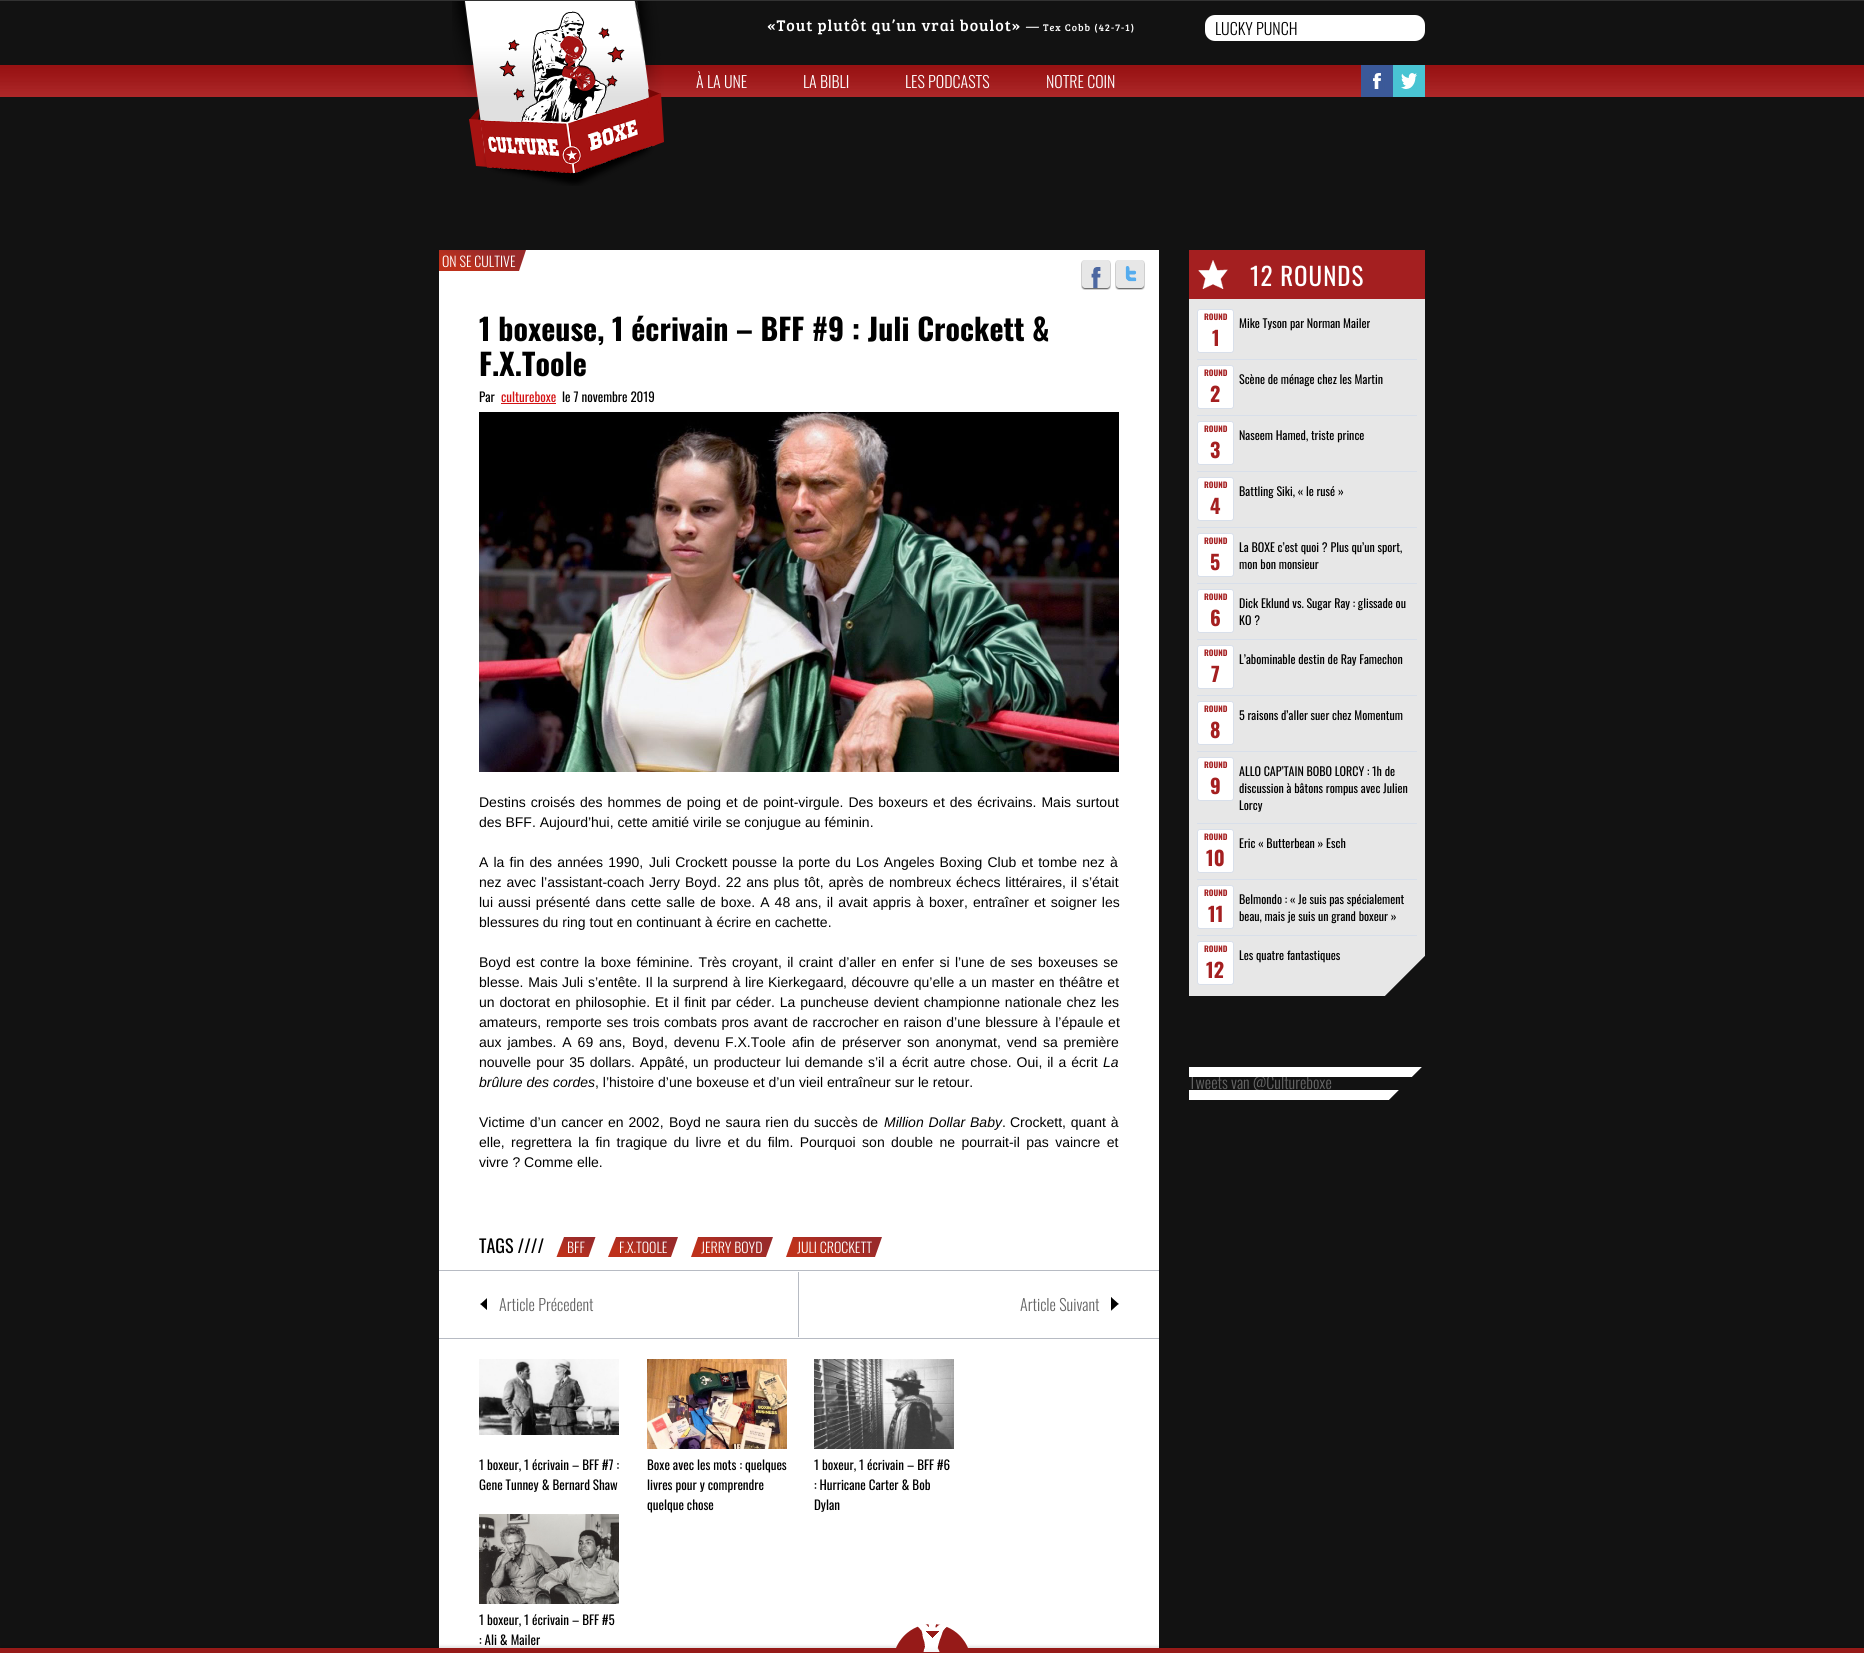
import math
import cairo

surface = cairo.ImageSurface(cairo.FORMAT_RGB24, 1864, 1653)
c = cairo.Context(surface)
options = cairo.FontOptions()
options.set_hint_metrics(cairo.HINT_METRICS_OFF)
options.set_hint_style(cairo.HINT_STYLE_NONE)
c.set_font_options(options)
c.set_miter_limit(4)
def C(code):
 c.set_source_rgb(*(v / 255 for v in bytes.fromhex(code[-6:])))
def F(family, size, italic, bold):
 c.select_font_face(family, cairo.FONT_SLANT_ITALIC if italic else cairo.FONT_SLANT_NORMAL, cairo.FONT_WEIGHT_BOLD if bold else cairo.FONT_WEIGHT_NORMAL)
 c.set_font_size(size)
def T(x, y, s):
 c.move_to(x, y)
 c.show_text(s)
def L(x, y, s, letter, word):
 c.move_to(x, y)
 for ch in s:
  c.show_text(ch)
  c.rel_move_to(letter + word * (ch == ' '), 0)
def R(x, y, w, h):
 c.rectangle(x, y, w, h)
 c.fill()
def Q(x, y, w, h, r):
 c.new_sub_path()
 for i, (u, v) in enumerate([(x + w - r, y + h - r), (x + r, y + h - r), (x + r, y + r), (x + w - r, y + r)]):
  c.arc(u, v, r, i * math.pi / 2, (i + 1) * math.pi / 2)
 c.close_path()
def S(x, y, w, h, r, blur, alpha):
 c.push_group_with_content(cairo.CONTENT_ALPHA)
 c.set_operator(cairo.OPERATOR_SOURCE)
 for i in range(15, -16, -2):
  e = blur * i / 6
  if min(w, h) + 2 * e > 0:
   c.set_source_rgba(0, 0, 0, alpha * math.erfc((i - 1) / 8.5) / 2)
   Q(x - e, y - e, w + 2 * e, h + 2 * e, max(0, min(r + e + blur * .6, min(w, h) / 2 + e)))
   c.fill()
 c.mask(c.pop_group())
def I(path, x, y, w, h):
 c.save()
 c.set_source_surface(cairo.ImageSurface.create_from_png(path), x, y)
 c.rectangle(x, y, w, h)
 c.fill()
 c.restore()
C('121212')
c.paint()
C('323232')
R(0,0,1864,1)
I('2.png',0,65,1864,32)
I('1.png',452,1,212,185)
F('Bree Serif',16,0,0)
C('ffffff')
L(767,31,'«Tout plutôt qu’un vrai boulot»',1,0)
F('Bree Serif',13,1,0)
L(1025,31,'—',1,0)
F('Bree Serif',10,0,0)
L(1043,31,'Tex Cobb (42-7-1)',1,0)
Q(1205,15,220,26,10)
c.fill()
F('Oswald Light',16,0,0)
C('000000')
T(1215,35,'LUCKY PUNCH')
C('ffffff')
T(696,88,'À LA UNE')
T(803,88,'LA BIBLI')
T(905,88,'LES PODCASTS')
T(1046,88,'NOTRE COIN')
I('3.png',1361,65,32,32)
I('4.png',1393,65,32,32)
R(439,250,720,1398)
c.save()
c.rectangle(439,250,720,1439)
c.clip()
gradient = cairo.LinearGradient(483,250,475,271)
gradient.add_color_stop_rgba(.01,0.6,0.165,0.165,1)
gradient.add_color_stop_rgba(1,0.745,0.192,0.106,1)
c.set_source(gradient)
c.new_path()
c.move_to(439,250)
c.line_to(526,250)
c.line_to(519,271)
c.line_to(431,271)
c.close_path()
c.fill()
c.restore()
F('Oswald Light',14,0,0)
T(442,267,'ON SE CULTIVE')
I('5.png',1081,260,30,30)
I('6.png',1115,260,30,30)
F('Oswald',30,0,1)
C('000000')
T(479,341,'1 boxeuse, 1 écrivain – BFF #9 : Juli Crockett &')
T(479,376,'F.X.Toole')
F('Oswald',13,0,0)
T(479,402,'Par')
C('d41214')
T(501,402,'cultureboxe')
R(501,403,55,1)
C('000000')
T(562,402,'le 7 novembre 2019')
I('7.png',479,412,640,360)
F('Liberation Sans',14,0,0)
L(479,807,'Destins croisés des hommes de poing et de point-virgule. Des boxeurs et des écrivains. Mais surtout',0,1.1)
T(479,827,'des BFF. Aujourd’hui, cette amitié virile se conjugue au féminin.')
L(479,867,'A la fin des années 1990,',0,1.25)
L(649,867,'Juli Crockett',0,1.25)
L(732,867,'pousse la porte du Los Angeles Boxing Club et tombe nez à',0,1.25)
L(479,887,'nez avec l’assistant-coach',0,1)
L(649,887,'Jerry Boyd. 22 ans plus tôt, après de nombreux échecs littéraires, il s’était',0,1)
L(479,907,'lui aussi présenté dans cette salle de boxe. A 48 ans, il avait appris à boxer, entraîner et soigner les',0,1.2)
T(479,927,'blessures du ring tout en continuant à écrire en cachette.')
T(479,967,'Boyd')
L(516,967,'est contre la boxe féminine. Très croyant, il craint d’aller en enfer si l’une de ses boxeuses se',0,1.5)
L(479,987,'blesse. Mais',0,1)
T(562,987,'Juli')
L(588,987,'s’entête. Il la surprend à lire',0,.75)
T(768,987,'Kierkegaard')
L(843,987,', découvre qu’elle a un master en théâtre et',0,.75)
L(479,1007,'un doctorat en philosophie. Et il finit par céder. La puncheuse devient championne nationale chez les',0,1)
L(479,1027,'amateurs, remporte ses trois combats pros avant de raccrocher en raison d’une blessure à l’épaule et',0,.75)
L(479,1047,'aux jambes. A 69 ans,',0,2)
T(632,1047,'Boyd')
L(664,1047,', devenu',0,2)
T(725,1047,'F.X.Toole')
L(792,1047,'afin de préserver son anonymat, vend sa première',0,2)
L(479,1067,'nouvelle pour 35 dollars. Appâté, un producteur lui demande s’il a écrit autre chose. Oui, il a écrit',0,1.1)
F('Liberation Sans',14,1,0)
T(1103,1067,'La')
T(479,1087,'brûlure des cordes')
F('Liberation Sans',14,0,0)
T(595,1087,', l’histoire d’une boxeuse et d’un vieil entraîneur sur le retour.')
L(479,1127,'Victime d’un cancer en 2002,',0,1)
T(669,1127,'Boyd')
L(705,1127,'ne saura rien du succès de',0,1)
F('Liberation Sans',14,1,0)
L(884,1127,'Million Dollar Baby',0,1)
F('Liberation Sans',14,0,0)
T(1002,1127,'.')
T(1010,1127,'Crockett')
L(1062,1127,', quant à',0,1)
L(479,1147,'elle, regrettera la fin tragique du livre et du film. Pourquoi son double ne pourrait-il pas vaincre et',0,2.5)
T(479,1167,'vivre ? Comme elle.')
F('Oswald',18,0,0)
T(479,1253,'TAGS ////')
gradient = cairo.LinearGradient(580,1237,572,1257)
gradient.add_color_stop_rgba(.01,0.6,0.165,0.165,1)
gradient.add_color_stop_rgba(1,0.745,0.192,0.106,1)
c.set_source(gradient)
c.new_path()
c.move_to(564,1237)
c.line_to(595.5,1237)
c.line_to(588.5,1257)
c.line_to(556.5,1257)
c.close_path()
c.fill()
F('Oswald Light',14,0,0)
C('ffffff')
T(567,1253,'BFF')
gradient = cairo.LinearGradient(647,1237,640,1257)
gradient.add_color_stop_rgba(.01,0.6,0.165,0.165,1)
gradient.add_color_stop_rgba(1,0.745,0.192,0.106,1)
c.set_source(gradient)
c.new_path()
c.move_to(616,1237)
c.line_to(678,1237)
c.line_to(671,1257)
c.line_to(608,1257)
c.close_path()
c.fill()
C('ffffff')
T(619,1253,'F.X.TOOLE')
gradient = cairo.LinearGradient(736,1237,728,1257)
gradient.add_color_stop_rgba(.01,0.6,0.165,0.165,1)
gradient.add_color_stop_rgba(1,0.745,0.192,0.106,1)
c.set_source(gradient)
c.new_path()
c.move_to(698,1237)
c.line_to(773,1237)
c.line_to(766,1257)
c.line_to(691,1257)
c.close_path()
c.fill()
C('ffffff')
T(701,1253,'JERRY BOYD')
gradient = cairo.LinearGradient(838,1237,831,1257)
gradient.add_color_stop_rgba(.01,0.6,0.165,0.165,1)
gradient.add_color_stop_rgba(1,0.745,0.192,0.106,1)
c.set_source(gradient)
c.new_path()
c.move_to(793,1237)
c.line_to(882,1237)
c.line_to(875,1257)
c.line_to(786,1257)
c.close_path()
c.fill()
C('ffffff')
T(797,1253,'JULI CROCKETT')
C('b7bbc3')
R(439,1270,720,1)
R(798,1272,1,65)
I('8.png',480,1298,7,12)
F('Oswald Light',16,0,0)
C('666666')
T(499,1311,'Article Précedent')
T(1020,1311,'Article Suivant')
I('9.png',1111,1297,8,14)
C('b7bbc3')
R(439,1338,720,1)
I('10.png',479,1359,140,76)
F('Oswald',13,0,0)
C('000000')
T(479,1470,'1 boxeur, 1 écrivain – BFF #7 :')
T(479,1490,'Gene Tunney & Bernard Shaw')
I('11.png',647,1359,140,90)
T(647,1470,'Boxe avec les mots : quelques')
T(647,1490,'livres pour y comprendre')
T(647,1510,'quelque chose')
I('12.png',814,1359,140,90)
T(814,1470,'1 boxeur, 1 écrivain – BFF #6')
T(814,1490,': Hurricane Carter & Bob')
T(814,1510,'Dylan')
I('13.png',479,1514,140,90)
T(479,1625,'1 boxeur, 1 écrivain – BFF #5')
T(479,1645,': Ali & Mailer')
C('a41f20')
R(1189,250,236,49)
I('14.png',1198,260,30,29)
F('Oswald',25,0,0)
C('ffffff')
L(1250,286,'12 ROUNDS',1,0)
C('e7e7e7')
R(1189,299,236,697)
C('d8dfea')
R(1197,359,220,1)
C('ffffff')
Q(1197.5,309.5,36,43,2.5)
c.fill_preserve()
C('d8dfea')
c.set_line_width(1)
c.stroke()
F('Oswald',8,0,1)
C('a41f20')
T(1204,320,'ROUND')
F('Oswald',20,0,1)
T(1212,346,'1')
F('Oswald',12,0,0)
C('000000')
T(1239,328,'Mike Tyson par Norman Mailer')
C('d8dfea')
R(1197,415,220,1)
C('ffffff')
Q(1197.5,365.5,36,43,2.5)
c.fill_preserve()
C('d8dfea')
c.stroke()
F('Oswald',8,0,1)
C('a41f20')
T(1204,376,'ROUND')
F('Oswald',20,0,1)
T(1210,402,'2')
F('Oswald',12,0,0)
C('000000')
T(1239,384,'Scène de ménage chez les Martin')
C('d8dfea')
R(1197,471,220,1)
C('ffffff')
Q(1197.5,421.5,36,43,2.5)
c.fill_preserve()
C('d8dfea')
c.stroke()
F('Oswald',8,0,1)
C('a41f20')
T(1204,432,'ROUND')
F('Oswald',20,0,1)
T(1210,458,'3')
F('Oswald',12,0,0)
C('000000')
T(1239,440,'Naseem Hamed, triste prince')
C('d8dfea')
R(1197,527,220,1)
C('ffffff')
Q(1197.5,477.5,36,43,2.5)
c.fill_preserve()
C('d8dfea')
c.stroke()
F('Oswald',8,0,1)
C('a41f20')
T(1204,488,'ROUND')
F('Oswald',20,0,1)
T(1210,514,'4')
F('Oswald',12,0,0)
C('000000')
T(1239,496,'Battling Siki, « le rusé »')
C('d8dfea')
R(1197,583,220,1)
C('ffffff')
Q(1197.5,533.5,36,43,2.5)
c.fill_preserve()
C('d8dfea')
c.stroke()
F('Oswald',8,0,1)
C('a41f20')
T(1204,544,'ROUND')
F('Oswald',20,0,1)
T(1210,570,'5')
F('Oswald',12,0,0)
C('000000')
T(1239,552,'La BOXE c’est quoi ? Plus qu’un sport,')
T(1239,569,'mon bon monsieur')
C('d8dfea')
R(1197,639,220,1)
C('ffffff')
Q(1197.5,589.5,36,43,2.5)
c.fill_preserve()
C('d8dfea')
c.stroke()
F('Oswald',8,0,1)
C('a41f20')
T(1204,600,'ROUND')
F('Oswald',20,0,1)
T(1210,626,'6')
F('Oswald',12,0,0)
C('000000')
T(1239,608,'Dick Eklund vs. Sugar Ray : glissade ou')
T(1239,625,'KO ?')
C('d8dfea')
R(1197,695,220,1)
C('ffffff')
Q(1197.5,645.5,36,43,2.5)
c.fill_preserve()
C('d8dfea')
c.stroke()
F('Oswald',8,0,1)
C('a41f20')
T(1204,656,'ROUND')
F('Oswald',20,0,1)
T(1211,682,'7')
F('Oswald',12,0,0)
C('000000')
T(1239,664,'L’abominable destin de Ray Famechon')
C('d8dfea')
R(1197,751,220,1)
C('ffffff')
Q(1197.5,701.5,36,43,2.5)
c.fill_preserve()
C('d8dfea')
c.stroke()
F('Oswald',8,0,1)
C('a41f20')
T(1204,712,'ROUND')
F('Oswald',20,0,1)
T(1210,738,'8')
F('Oswald',12,0,0)
C('000000')
T(1239,720,'5 raisons d’aller suer chez Momentum')
C('d8dfea')
R(1197,823,220,1)
C('ffffff')
Q(1197.5,757.5,36,43,2.5)
c.fill_preserve()
C('d8dfea')
c.stroke()
F('Oswald',8,0,1)
C('a41f20')
T(1204,768,'ROUND')
F('Oswald',20,0,1)
T(1210,794,'9')
F('Oswald',12,0,0)
C('000000')
T(1239,776,'ALLO CAP’TAIN BOBO LORCY : 1h de')
T(1239,793,'discussion à bâtons rompus avec Julien')
T(1239,810,'Lorcy')
C('d8dfea')
R(1197,879,220,1)
C('ffffff')
Q(1197.5,829.5,36,43,2.5)
c.fill_preserve()
C('d8dfea')
c.stroke()
F('Oswald',8,0,1)
C('a41f20')
T(1204,840,'ROUND')
F('Oswald',20,0,1)
T(1206,866,'10')
F('Oswald',12,0,0)
C('000000')
T(1239,848,'Eric « Butterbean » Esch')
C('d8dfea')
R(1197,935,220,1)
C('ffffff')
Q(1197.5,885.5,36,43,2.5)
c.fill_preserve()
C('d8dfea')
c.stroke()
F('Oswald',8,0,1)
C('a41f20')
T(1204,896,'ROUND')
F('Oswald',20,0,1)
T(1208,922,'11')
F('Oswald',12,0,0)
C('000000')
T(1239,904,'Belmondo : « Je suis pas spécialement')
T(1239,921,'beau, mais je suis un grand boxeur »')
C('ffffff')
Q(1197.5,941.5,36,43,2.5)
c.fill_preserve()
C('d8dfea')
c.stroke()
F('Oswald',8,0,1)
C('a41f20')
T(1204,952,'ROUND')
F('Oswald',20,0,1)
T(1206,978,'12')
F('Oswald',12,0,0)
C('000000')
T(1239,960,'Les quatre fantastiques')
I('15.png',1385,956,40,40)
F('Oswald Light',16,0,0)
C('666666')
T(1189,1089,'Tweets van @Cultureboxe')
C('ffffff')
R(1189,1067,233,10)
R(1189,1090,210,10)
I('16.png',1389,1067,36,33)
C('000000')
S(0,1646,1864,5,0,1,.1)
C('961a18')
R(0,1648,1864,5)
I('17.png',896,1624,72,28)
I('18.png',926,1631,13,7)
surface.write_to_png('o.png')
